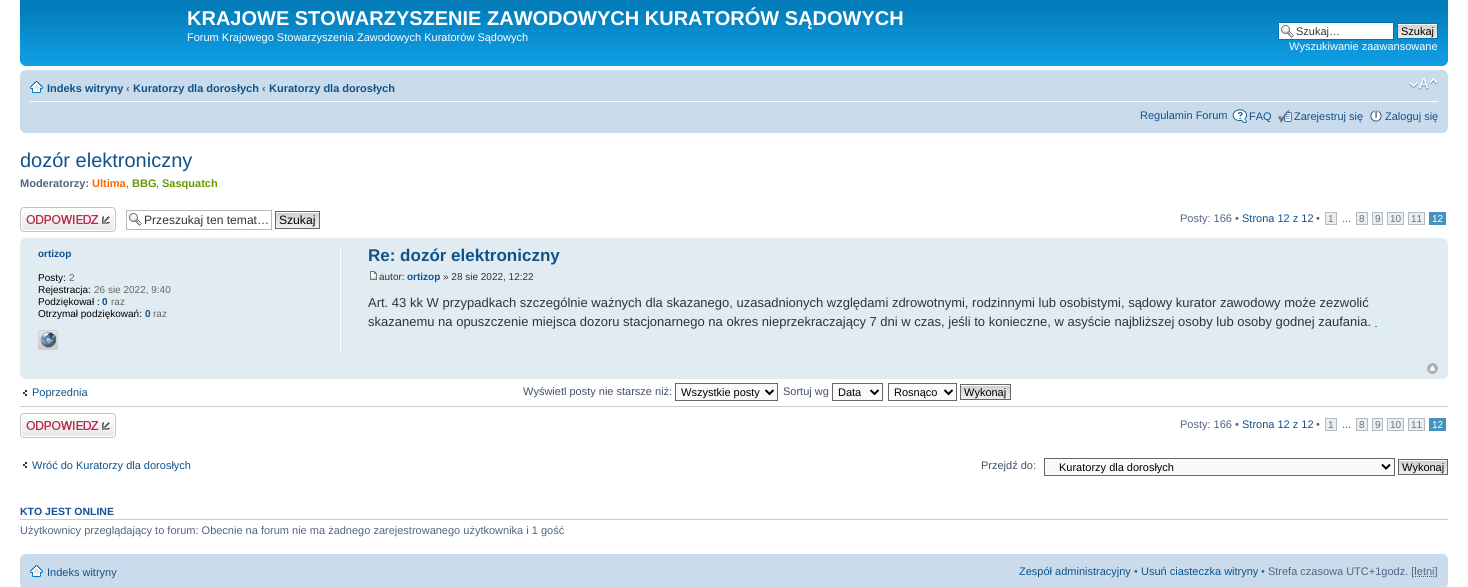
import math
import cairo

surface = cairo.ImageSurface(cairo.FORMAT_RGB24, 1468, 587)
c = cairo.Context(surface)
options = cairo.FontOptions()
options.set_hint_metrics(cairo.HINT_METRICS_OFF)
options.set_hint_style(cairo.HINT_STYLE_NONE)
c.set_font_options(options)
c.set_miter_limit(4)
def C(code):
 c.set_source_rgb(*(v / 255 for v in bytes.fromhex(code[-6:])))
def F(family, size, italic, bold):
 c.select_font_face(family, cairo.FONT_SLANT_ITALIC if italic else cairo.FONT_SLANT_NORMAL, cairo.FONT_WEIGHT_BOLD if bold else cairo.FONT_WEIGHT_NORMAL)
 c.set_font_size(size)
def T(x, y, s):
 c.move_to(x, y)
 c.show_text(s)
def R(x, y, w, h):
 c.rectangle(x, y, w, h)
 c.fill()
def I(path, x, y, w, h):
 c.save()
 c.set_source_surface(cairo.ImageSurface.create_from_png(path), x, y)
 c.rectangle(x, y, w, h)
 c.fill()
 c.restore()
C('ffffff')
c.paint()
I('1.png',20,0,1428,66)
F('Liberation Sans',20,0,1)
C('ffffff')
T(187,25,'KRAJOWE STOWARZYSZENIE ZAWODOWYCH KURATORÓW SĄDOWYCH')
F('Liberation Sans',11,0,0)
T(187,41,'Forum Krajowego Stowarzyszenia Zawodowych Kuratorów Sądowych')
R(1279,23,114,16)
I('2.png',1281,25,13,13)
c.rectangle(1278.5,22.5,115,17)
C('0075b0')
c.set_line_width(1)
c.stroke()
C('333333')
T(1296,35,'Szukaj…')
I('3.png',1398,24,39,14)
c.rectangle(1397.5,23.5,40,15)
C('0075b0')
c.stroke()
C('000000')
T(1401,35,'Szukaj')
C('ffffff')
T(1289,50,'Wyszukiwanie zaawansowane')
I('4.png',20,61,5,5)
I('5.png',1443,61,5,5)
C('cadceb')
R(20,70,1428,63)
I('6.png',20,70,5,5)
I('7.png',1443,70,5,5)
C('ffffff')
R(30,101,1408,1)
I('8.png',30,81,13,12)
F('Liberation Sans',11,0,1)
C('105289')
T(47,92,'Indeks witryny')
C('536482')
T(126,92,'‹')
C('105289')
T(133,92,'Kuratorzy dla dorosłych')
C('536482')
T(262,92,'‹')
C('105289')
T(269,92,'Kuratorzy dla dorosłych')
I('9.png',1409,78,29,12)
F('Liberation Sans',11,0,0)
T(1140,119,'Regulamin Forum')
I('10.png',1232,109,16,14)
T(1249,120,'FAQ')
I('11.png',1278,110,14,13)
T(1294,120,'Zarejestruj się')
I('12.png',1370,110,12,12)
T(1385,120,'Zaloguj się')
I('13.png',20,128,5,5)
I('14.png',1443,128,5,5)
F('Liberation Sans',20,0,0)
T(20,167,'dozór elektroniczny')
F('Liberation Sans',11,0,1)
C('536482')
T(20,187,'Moderatorzy:')
C('ff6600')
T(92,187,'Ultima')
F('Liberation Sans',11,0,0)
C('536482')
T(126,187,',')
F('Liberation Sans',11,0,1)
C('669900')
T(132,187,'BBG')
F('Liberation Sans',11,0,0)
C('536482')
T(156,187,',')
F('Liberation Sans',11,0,1)
C('669900')
T(162,187,'Sasquatch')
I('15.png',20,207,96,25)
I('2.png',129,213,13,13)
c.rectangle(126.5,210.5,145,19)
C('b4bac0')
c.stroke()
F('Liberation Sans',12.1,0,0)
C('333333')
T(144,224,'Przeszukaj ten temat…')
I('16.png',276,212,43,16)
c.rectangle(275.5,211.5,44,17)
C('666666')
c.stroke()
C('000000')
T(279,224,'Szukaj')
F('Liberation Sans',11,0,0)
C('536482')
T(1180,222,'Posty: 166 •')
C('105289')
T(1242,222,'Strona 12 z 12')
C('536482')
T(1316,222,'•')
C('ecedee')
c.rectangle(1325.5,212.5,11,12)
c.fill_preserve()
C('b4bac0')
c.stroke()
F('Liberation Sans',10,0,0)
C('5c758c')
T(1328,222,'1')
C('ecedee')
c.rectangle(1356.5,212.5,11,12)
c.fill_preserve()
C('b4bac0')
c.stroke()
C('5c758c')
T(1359,222,'8')
C('ecedee')
c.rectangle(1372.5,212.5,10,12)
c.fill_preserve()
C('b4bac0')
c.stroke()
C('5c758c')
T(1375,222,'9')
C('ecedee')
c.rectangle(1387.5,212.5,16,12)
c.fill_preserve()
C('b4bac0')
c.stroke()
C('5c758c')
T(1390,222,'10')
C('ecedee')
c.rectangle(1408.5,212.5,16,12)
c.fill_preserve()
C('b4bac0')
c.stroke()
C('5c758c')
T(1411,222,'11')
C('4692bf')
R(1429,212,17,13)
C('ffffff')
T(1432,222,'12')
F('Liberation Sans',11,0,0)
C('536482')
T(1342,222,'...')
C('e1ebf2')
R(20,238,1428,141)
I('17.png',20,238,5,5)
I('18.png',1443,238,5,5)
C('ffffff')
R(340,248,1,105)
F('Liberation Sans',10,0,1)
C('105289')
T(38,257,'ortizop')
F('Liberation Sans',10,0,0)
C('000000')
T(38,281,'Posty:')
C('666666')
T(69,281,'2')
C('000000')
T(38,293,'Rejestracja:')
C('666666')
T(94,293,'26 sie 2022, 9:40')
C('000000')
T(38,305,'Podziękował :')
F('Liberation Sans',10,0,1)
C('105289')
T(102,305,'0')
F('Liberation Sans',10,0,0)
C('666666')
T(111,305,'raz')
C('000000')
T(38,317,'Otrzymał podziękowań:')
F('Liberation Sans',10,0,1)
C('105289')
T(145,317,'0')
F('Liberation Sans',10,0,0)
C('666666')
T(153,317,'raz')
I('19.png',38,330,20,20)
F('Liberation Sans',17,0,1)
C('105289')
T(368,261,'Re: dozór elektroniczny')
I('20.png',370,271,7,9)
F('Liberation Sans',10,0,0)
C('333333')
T(379,280,'autor:')
F('Liberation Sans',10,0,1)
C('105289')
T(407,280,'ortizop')
F('Liberation Sans',10,0,0)
C('333333')
T(443,280,'» 28 sie 2022, 12:22')
F('Liberation Sans',13,0,0)
T(368,307,'Art. 43 kk W przypadkach szczególnie ważnych dla skazanego, uzasadnionych względami zdrowotnymi, rodzinnymi lub osobistymi, sądowy kurator zawodowy może zezwolić')
T(368,326,'skazanemu na opuszczenie miejsca dozoru stacjonarnego na okres nieprzekraczający 7 dni w czas, jeśli to konieczne, w asyście najbliższej osoby lub osoby godnej zaufania.')
C('368ad2')
R(1375,326,2,1)
I('21.png',1427,363,11,11)
I('22.png',20,374,5,5)
I('23.png',1443,374,5,5)
I('24.png',23,390,4,6)
F('Liberation Sans',11,0,0)
C('105289')
T(32,396,'Poprzednia')
C('425067')
T(523,395,'Wyświetl posty nie starsze niż:')
C('fafafa')
c.rectangle(675.5,383.5,102,17)
c.fill_preserve()
C('666666')
c.stroke()
c.new_path()
c.move_to(765.5,390)
c.line_to(769.5,394)
c.line_to(773.5,390)
C('000000')
c.set_line_width(2)
c.stroke()
T(681,396,'Wszystkie posty')
C('425067')
T(783,395,'Sortuj wg')
C('fafafa')
c.rectangle(832.5,383.5,50,17)
c.fill_preserve()
C('666666')
c.set_line_width(1)
c.stroke()
c.new_path()
c.move_to(870.5,390)
c.line_to(874.5,394)
c.line_to(878.5,390)
C('000000')
c.set_line_width(2)
c.stroke()
T(838,396,'Data')
C('fafafa')
c.rectangle(888.5,383.5,68,17)
c.fill_preserve()
C('666666')
c.set_line_width(1)
c.stroke()
c.new_path()
c.move_to(944.5,390)
c.line_to(948.5,394)
c.line_to(952.5,390)
C('000000')
c.set_line_width(2)
c.stroke()
T(894,396,'Rosnąco')
I('25.png',961,385,49,14)
c.rectangle(960.5,384.5,50,15)
C('666666')
c.set_line_width(1)
c.stroke()
C('000000')
T(964,396,'Wykonaj')
C('cccccc')
R(20,406,1428,1)
I('15.png',20,413,96,25)
C('536482')
T(1180,428,'Posty: 166 •')
C('105289')
T(1242,428,'Strona 12 z 12')
C('536482')
T(1316,428,'•')
C('ecedee')
c.rectangle(1325.5,418.5,11,12)
c.fill_preserve()
C('b4bac0')
c.stroke()
F('Liberation Sans',10,0,0)
C('5c758c')
T(1328,428,'1')
C('ecedee')
c.rectangle(1356.5,418.5,11,12)
c.fill_preserve()
C('b4bac0')
c.stroke()
C('5c758c')
T(1359,428,'8')
C('ecedee')
c.rectangle(1372.5,418.5,10,12)
c.fill_preserve()
C('b4bac0')
c.stroke()
C('5c758c')
T(1375,428,'9')
C('ecedee')
c.rectangle(1387.5,418.5,16,12)
c.fill_preserve()
C('b4bac0')
c.stroke()
C('5c758c')
T(1390,428,'10')
C('ecedee')
c.rectangle(1408.5,418.5,16,12)
c.fill_preserve()
C('b4bac0')
c.stroke()
C('5c758c')
T(1411,428,'11')
C('4692bf')
R(1429,418,17,13)
C('ffffff')
T(1432,428,'12')
F('Liberation Sans',11,0,0)
C('536482')
T(1342,428,'...')
I('24.png',23,462,4,6)
C('105289')
T(32,469,'Wróć do Kuratorzy dla dorosłych')
C('425067')
T(981,469,'Przejdź do:')
C('fafafa')
c.rectangle(1044.5,458.5,350,17)
c.fill_preserve()
C('666666')
c.stroke()
c.new_path()
c.move_to(1382,464.5)
c.line_to(1386,468.5)
c.line_to(1390,464.5)
C('000000')
c.set_line_width(2)
c.stroke()
T(1059,471,'Kuratorzy dla dorosłych')
I('26.png',1399,460,48,14)
c.rectangle(1398.5,459.5,49,15)
C('666666')
c.set_line_width(1)
c.stroke()
C('000000')
T(1402,471,'Wykonaj')
C('cccccc')
R(20,519,1428,1)
F('Liberation Sans',10.5,0,1)
C('115098')
T(20,515,'KTO JEST ONLINE')
F('Liberation Sans',11,0,0)
C('536482')
T(20,534,'Użytkownicy przeglądający to forum: Obecnie na forum nie ma żadnego zarejestrowanego użytkownika i 1 gość')
C('cadceb')
R(20,554,1428,33)
I('6.png',20,554,5,5)
I('7.png',1443,554,5,5)
I('8.png',30,565,13,12)
C('105289')
T(47,576,'Indeks witryny')
T(1019,575,'Zespół administracyjny')
C('536482')
T(1134,575,'•')
C('105289')
T(1141,575,'Usuń ciasteczka witryny')
C('536482')
T(1261,575,'• Strefa czasowa UTC+1godz. [letni]')
c.new_path()
c.move_to(1415,576.5)
c.line_to(1435,576.5)
c.set_dash([1,1])
c.stroke()
I('27.png',20,584,2,3)
I('28.png',1446,584,2,3)
surface.write_to_png('o.png')
